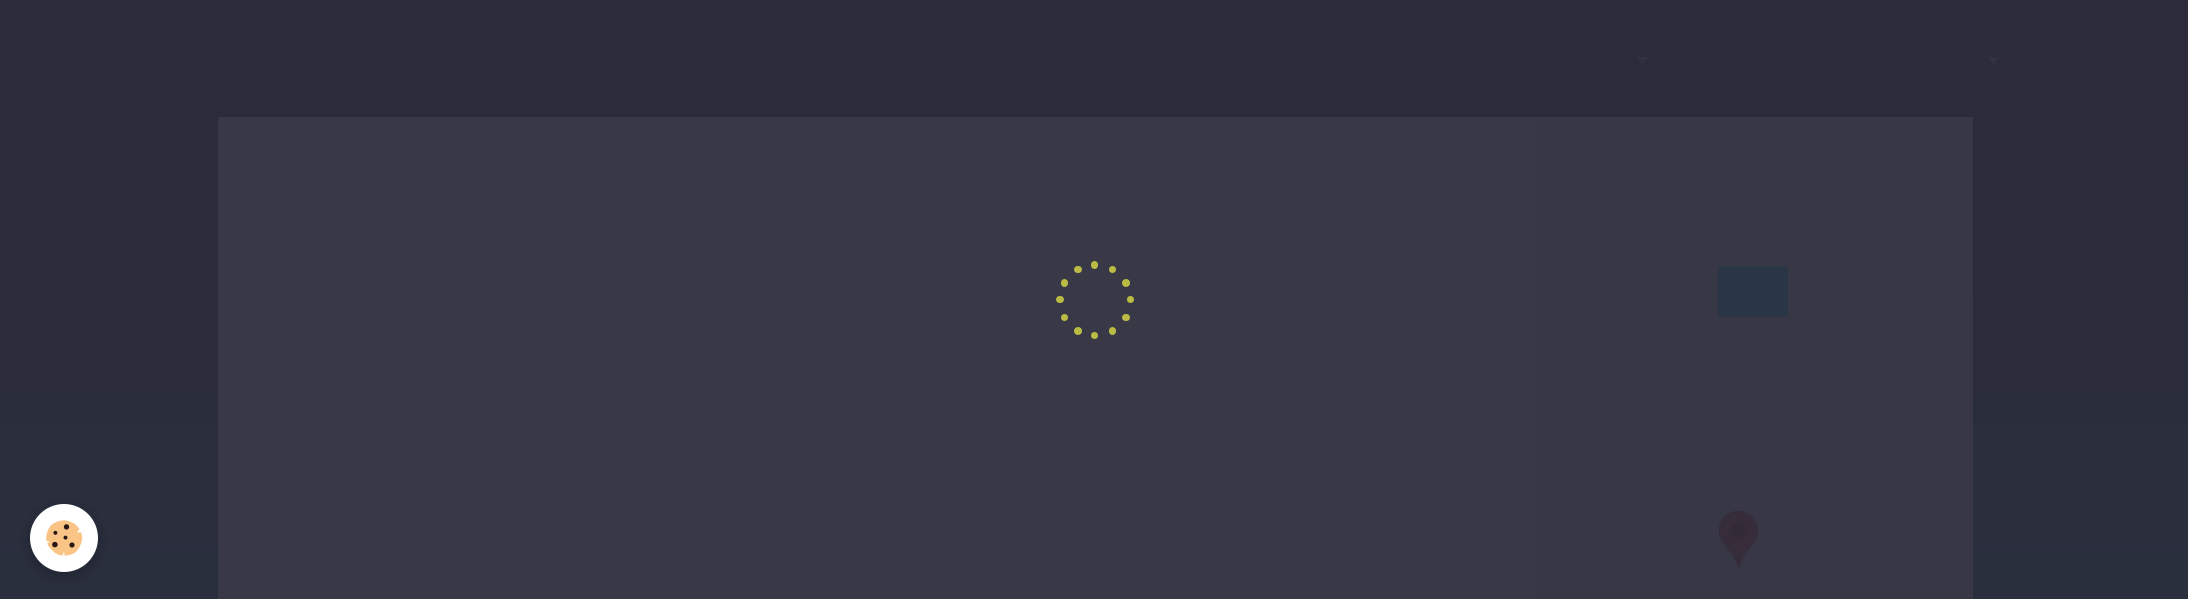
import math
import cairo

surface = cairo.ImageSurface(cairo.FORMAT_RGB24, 2188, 599)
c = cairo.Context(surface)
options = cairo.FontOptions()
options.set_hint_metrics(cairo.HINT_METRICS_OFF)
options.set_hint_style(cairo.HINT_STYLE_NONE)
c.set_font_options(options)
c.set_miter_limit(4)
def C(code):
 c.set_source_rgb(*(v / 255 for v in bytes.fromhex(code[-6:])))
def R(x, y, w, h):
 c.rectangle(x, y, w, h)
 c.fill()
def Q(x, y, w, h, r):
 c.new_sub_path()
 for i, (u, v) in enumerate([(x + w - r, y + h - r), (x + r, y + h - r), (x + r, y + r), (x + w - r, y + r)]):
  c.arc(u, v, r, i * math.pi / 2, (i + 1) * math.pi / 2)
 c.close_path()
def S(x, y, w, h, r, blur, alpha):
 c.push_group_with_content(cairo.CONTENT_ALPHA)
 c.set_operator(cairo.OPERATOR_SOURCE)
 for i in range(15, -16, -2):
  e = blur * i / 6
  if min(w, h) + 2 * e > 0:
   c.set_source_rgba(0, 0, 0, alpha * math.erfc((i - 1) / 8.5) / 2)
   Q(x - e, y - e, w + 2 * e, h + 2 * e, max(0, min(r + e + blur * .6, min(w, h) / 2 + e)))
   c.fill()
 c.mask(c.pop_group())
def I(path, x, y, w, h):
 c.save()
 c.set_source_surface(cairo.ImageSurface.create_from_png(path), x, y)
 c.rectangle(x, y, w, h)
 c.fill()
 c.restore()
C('ffffff')
c.paint()
gradient = cairo.LinearGradient(1094,0,1094,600)
gradient.add_color_stop_rgba(0,0.169,0.169,0.227,1)
gradient.add_color_stop_rgba(.19,0.169,0.169,0.227,1)
gradient.add_color_stop_rgba(1,0.165,0.184,0.243,1)
c.set_source(gradient)
R(0,117,2188,482)
C('2b2b3a')
R(0,2,2188,115)
C('2c2c3b')
R(0,0,2188,2)
C('313140')
c.new_path()
c.move_to(1636.5,57)
c.line_to(1648.5,57)
c.line_to(1642.5,64.5)
c.close_path()
c.fill()
c.new_path()
c.move_to(1987.5,57)
c.line_to(1999.5,57)
c.line_to(1993.5,64.5)
c.close_path()
c.fill()
C('383846')
R(218,117,1315,482)
C('373745')
R(1533,117,440,482)
C('2a3545')
R(1718,266,70,51)
I('1.png',1719,511,39,56)
C('babb44')
Q(1074,266,8,7,3.5)
c.fill()
Q(1091,261,7,8,3.5)
c.fill()
c.arc(1112.5,269.5,3.5,0,2 * math.pi)
c.fill()
Q(1061,279,7,8,3.5)
c.fill()
c.arc(1126,283,4,0,2 * math.pi)
c.fill()
Q(1056,296,8,7,3.5)
c.fill()
c.arc(1130.5,299.5,3.5,0,2 * math.pi)
c.fill()
c.arc(1064.5,317.5,3.5,0,2 * math.pi)
c.fill()
Q(1122,314,8,7,3.5)
c.fill()
c.arc(1078,331,4,0,2 * math.pi)
c.fill()
c.arc(1094.5,335.5,3.5,0,2 * math.pi)
c.fill()
Q(1109,327,7,8,3.5)
c.fill()
C('000000')
S(30,509,68,67,33.5,7.5,.24)
C('ffffff')
c.arc(64,538,34,0,2 * math.pi)
c.fill()
I('2.png',46,520,37,36)
surface.write_to_png('o.png')
